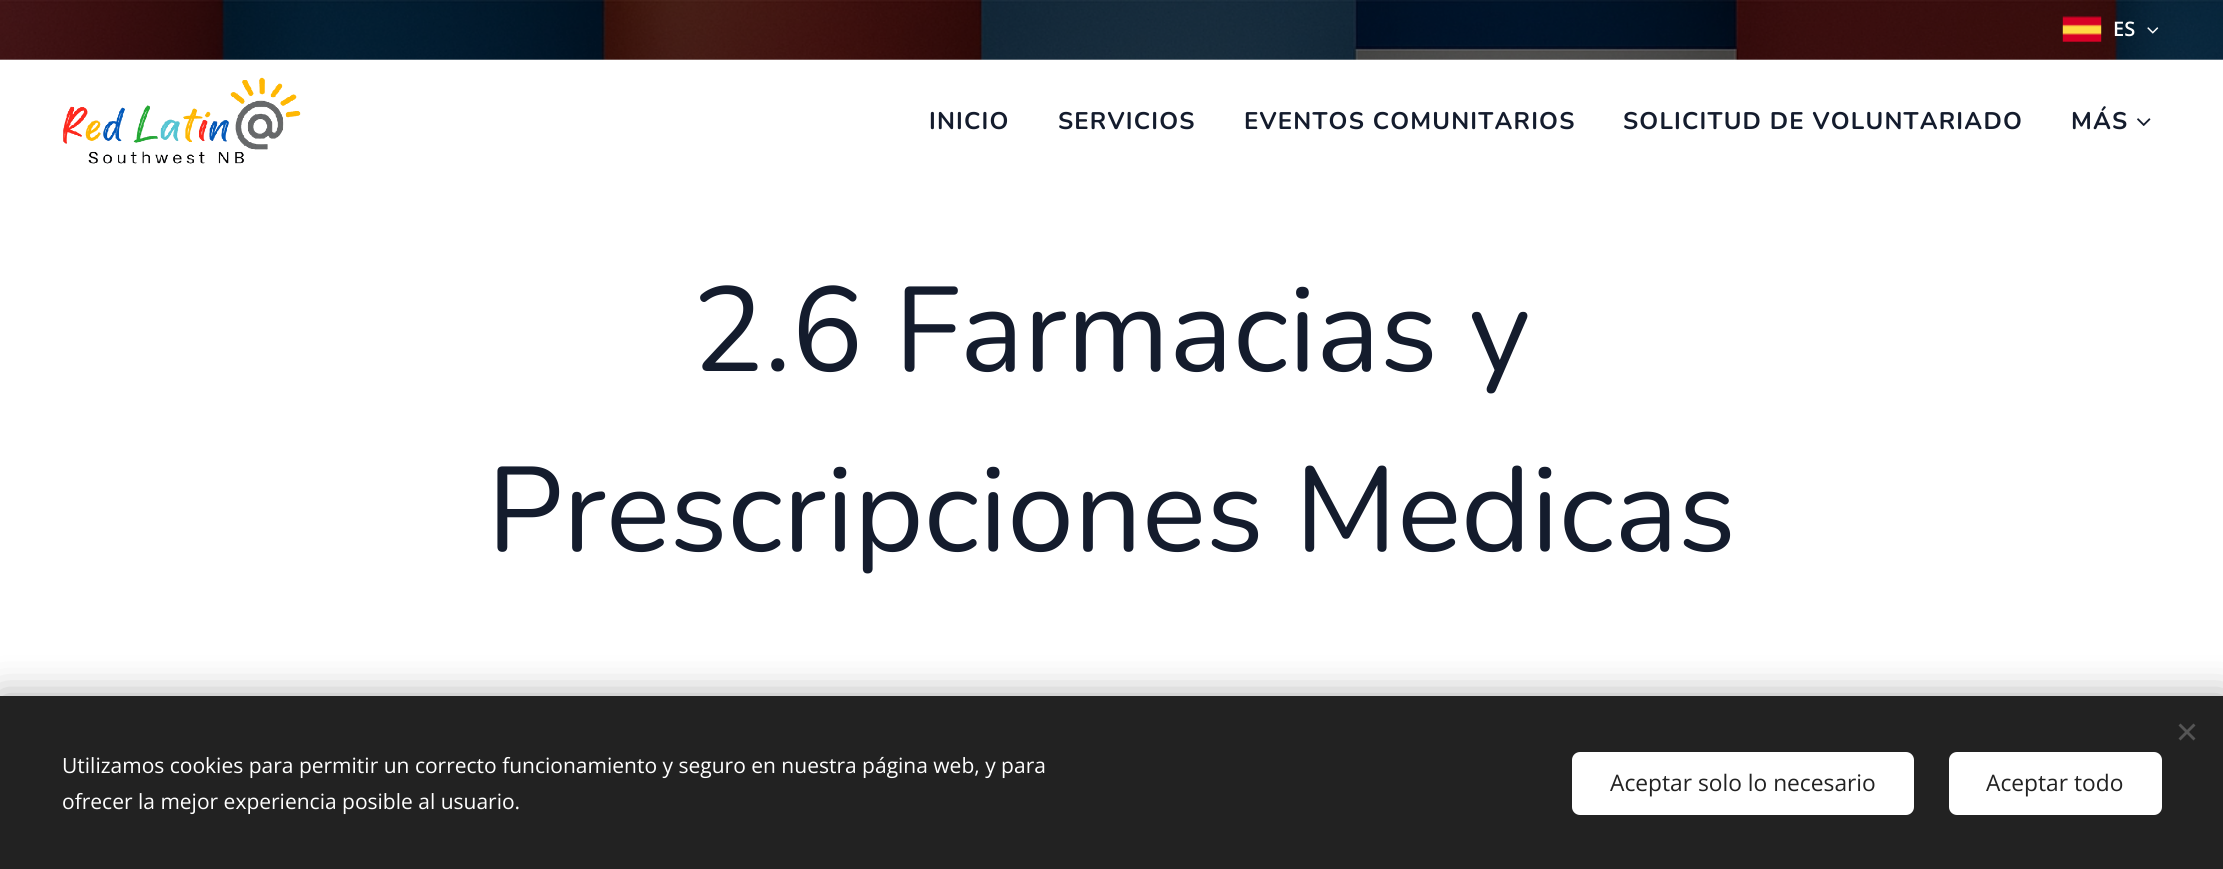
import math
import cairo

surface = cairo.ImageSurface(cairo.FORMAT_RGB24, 2223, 869)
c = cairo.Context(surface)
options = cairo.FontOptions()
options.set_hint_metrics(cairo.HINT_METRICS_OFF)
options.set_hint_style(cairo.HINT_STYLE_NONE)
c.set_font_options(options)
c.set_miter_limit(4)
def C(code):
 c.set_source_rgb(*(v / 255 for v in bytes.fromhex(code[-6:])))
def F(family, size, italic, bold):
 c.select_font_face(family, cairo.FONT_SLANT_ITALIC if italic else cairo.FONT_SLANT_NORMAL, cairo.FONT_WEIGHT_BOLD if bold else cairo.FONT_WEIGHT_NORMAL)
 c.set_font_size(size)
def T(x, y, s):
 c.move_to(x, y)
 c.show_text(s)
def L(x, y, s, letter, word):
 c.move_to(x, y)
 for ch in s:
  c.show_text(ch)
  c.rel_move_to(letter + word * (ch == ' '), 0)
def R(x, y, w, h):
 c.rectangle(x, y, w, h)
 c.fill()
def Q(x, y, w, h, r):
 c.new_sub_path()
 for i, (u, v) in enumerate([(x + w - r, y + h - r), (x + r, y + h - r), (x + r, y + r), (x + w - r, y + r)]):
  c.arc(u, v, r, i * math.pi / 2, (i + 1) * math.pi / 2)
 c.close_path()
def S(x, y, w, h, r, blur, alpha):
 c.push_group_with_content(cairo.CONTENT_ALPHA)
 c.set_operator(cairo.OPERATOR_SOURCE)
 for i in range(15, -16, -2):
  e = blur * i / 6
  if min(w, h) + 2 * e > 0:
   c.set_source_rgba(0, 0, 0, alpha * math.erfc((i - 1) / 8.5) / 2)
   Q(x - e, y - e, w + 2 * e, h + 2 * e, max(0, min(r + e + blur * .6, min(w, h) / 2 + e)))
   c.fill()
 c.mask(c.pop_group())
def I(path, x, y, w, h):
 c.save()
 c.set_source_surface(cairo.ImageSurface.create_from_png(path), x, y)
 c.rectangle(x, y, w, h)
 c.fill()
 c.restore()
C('ffffff')
c.paint()
I('1.png',0,0,2223,60)
I('2.png',2062,16,40,26)
F('Open Sans SemiBold',20,0,0)
C('ffffff')
T(2113,36,'ES')
I('3.png',2147,27,12,7)
c.set_source_rgba(1,1,1,0.3)
R(0,59,2223,1)
I('4.png',63,77,238,87)
F('Nunito',24,0,1)
C('141c2d')
L(929,129,'INICIO',1.2,0)
L(1058,129,'SERVICIOS',1.2,0)
L(1244,129,'EVENTOS COMUNITARIOS',1.2,0)
L(1623,129,'SOLICITUD DE VOLUNTARIADO',1.2,0)
L(2071,129,'MÁS',1.2,0)
I('5.png',2137,118,14,8)
F('Nunito',120,0,0)
T(692,371,'2.6 Farmacias y')
T(487,551,'Prescripciones Medicas')
C('000000')
S(0,696,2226,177,0,19,.33)
C('222222')
R(0,696,2223,173)
C('555555')
c.new_path()
c.move_to(2178.5,738.5)
c.line_to(2193.5,723.5)
c.line_to(2195.5,725.5)
c.line_to(2180.5,740.5)
c.close_path()
c.fill()
c.new_path()
c.move_to(2180.5,723.5)
c.line_to(2195.5,738.5)
c.line_to(2193.5,740.5)
c.line_to(2178.5,725.5)
c.close_path()
c.fill()
F('Open Sans',21,0,0)
C('ffffff')
T(62,773,'Utilizamos cookies para permitir un correcto funcionamiento y seguro en nuestra página web, y para')
T(62,809,'ofrecer la mejor experiencia posible al usuario.')
Q(1572,752,342,63,8)
c.fill()
F('Open Sans',22.75,0,0)
C('222222')
T(1610,791,'Aceptar solo lo necesario')
C('ffffff')
Q(1949,752,213,63,8)
c.fill()
C('222222')
T(1986,791,'Aceptar todo')
surface.write_to_png('o.png')
